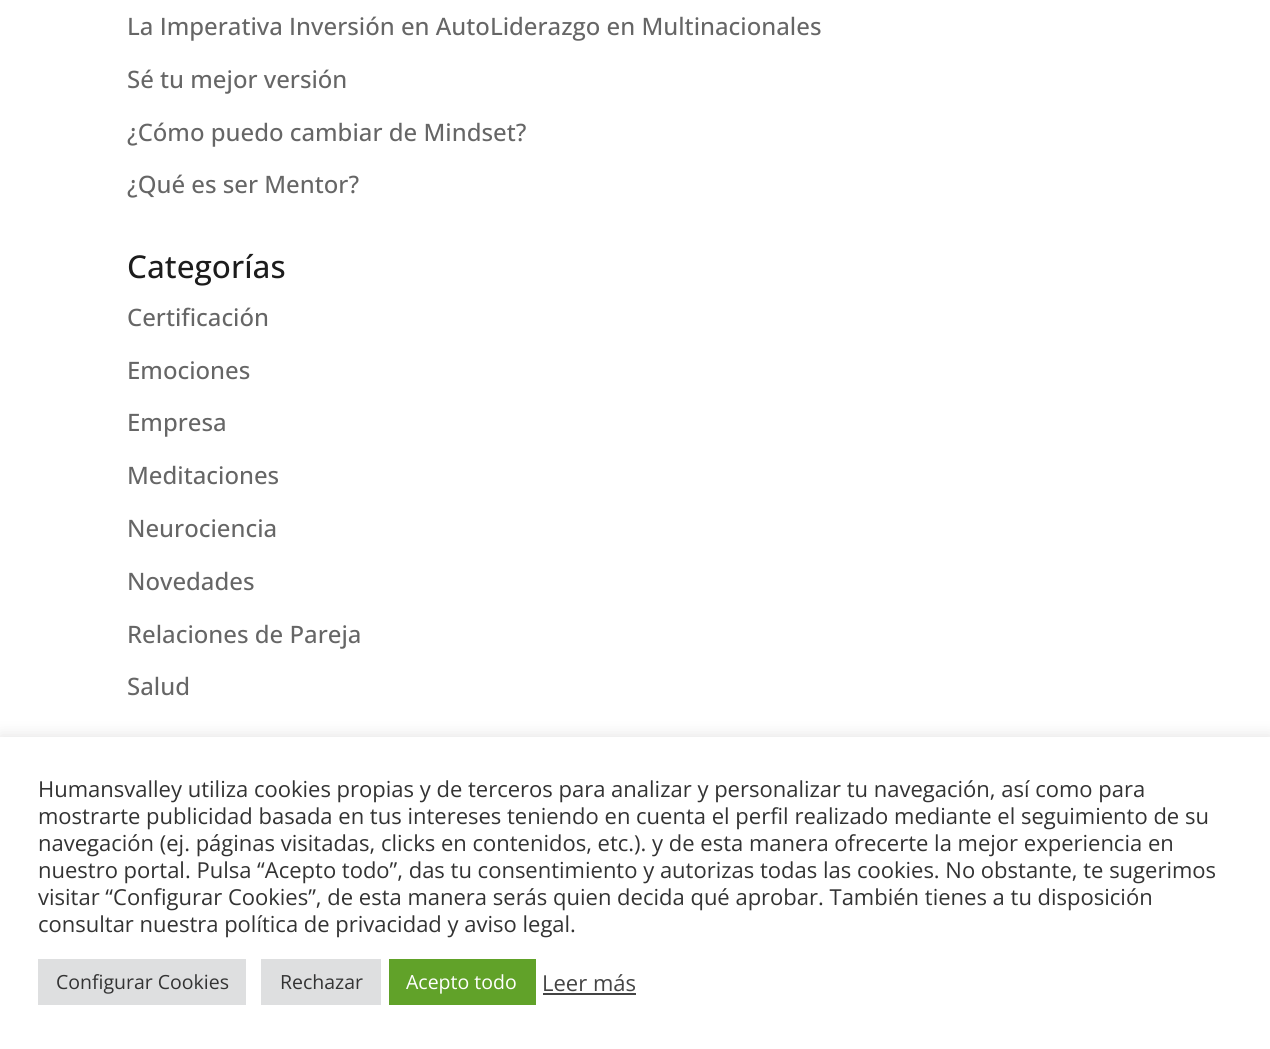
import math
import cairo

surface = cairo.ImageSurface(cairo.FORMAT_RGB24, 1270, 1049)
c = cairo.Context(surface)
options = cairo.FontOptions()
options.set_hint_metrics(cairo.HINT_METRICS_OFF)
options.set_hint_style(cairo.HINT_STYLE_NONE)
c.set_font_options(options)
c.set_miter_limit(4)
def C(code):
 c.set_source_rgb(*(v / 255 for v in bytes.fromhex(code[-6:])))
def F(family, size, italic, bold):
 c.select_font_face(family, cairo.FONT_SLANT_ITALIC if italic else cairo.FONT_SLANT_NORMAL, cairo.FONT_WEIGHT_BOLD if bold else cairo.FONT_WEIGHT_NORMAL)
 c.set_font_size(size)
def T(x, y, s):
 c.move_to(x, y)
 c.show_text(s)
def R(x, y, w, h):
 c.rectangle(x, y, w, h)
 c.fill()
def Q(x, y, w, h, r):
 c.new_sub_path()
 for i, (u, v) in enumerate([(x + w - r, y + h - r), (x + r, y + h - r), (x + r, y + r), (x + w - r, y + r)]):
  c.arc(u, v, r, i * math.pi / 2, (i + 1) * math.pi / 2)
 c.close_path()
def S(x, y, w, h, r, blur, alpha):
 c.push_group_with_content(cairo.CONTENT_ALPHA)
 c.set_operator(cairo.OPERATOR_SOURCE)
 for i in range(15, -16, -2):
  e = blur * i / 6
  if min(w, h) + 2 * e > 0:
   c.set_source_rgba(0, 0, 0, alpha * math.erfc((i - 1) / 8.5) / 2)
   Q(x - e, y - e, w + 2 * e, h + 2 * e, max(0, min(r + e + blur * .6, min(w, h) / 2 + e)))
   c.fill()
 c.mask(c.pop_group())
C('ffffff')
c.paint()
F('Open Sans Medium',24,0,0)
C('666666')
T(127,35,'La Imperativa Inversión en AutoLiderazgo en Multinacionales')
T(127,88,'Sé tu mejor versión')
T(127,141,'¿Cómo puedo cambiar de Mindset?')
T(127,193,'¿Qué es ser Mentor?')
F('Open Sans Medium',31.5,0,0)
C('1c1c1c')
T(127,278,'Categorías')
F('Open Sans Medium',24,0,0)
C('666666')
T(127,326,'Certificación')
T(127,379,'Emociones')
T(127,431,'Empresa')
T(127,484,'Meditaciones')
T(127,537,'Neurociencia')
T(127,590,'Novedades')
T(127,643,'Relaciones de Pareja')
T(127,695,'Salud')
C('acabab')
S(0,735,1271,314,0,7.5,.3)
C('ffffff')
R(0,737,1270,312)
F('Open Sans',22,0,0)
C('333333')
T(38,797,'Humansvalley utiliza cookies propias y de terceros para analizar y personalizar tu navegación, así como para')
T(38,824,'mostrarte publicidad basada en tus intereses teniendo en cuenta el perfil realizado mediante el seguimiento de su')
T(38,851,'navegación (ej. páginas visitadas, clicks en contenidos, etc.). y de esta manera ofrecerte la mejor experiencia en')
T(38,878,'nuestro portal. Pulsa “Acepto todo”, das tu consentimiento y autorizas todas las cookies. No obstante, te sugerimos')
T(38,905,'visitar “Configurar Cookies”, de esta manera serás quien decida qué aprobar. También tienes a tu disposición')
T(38,932,'consultar nuestra política de privacidad y aviso legal.')
C('dedfe0')
R(38,959,208,46)
F('Open Sans',19.5,0,0)
C('333333')
T(56,989,'Configurar Cookies')
C('dedfe0')
R(261,959,120,46)
C('333333')
T(280,989,'Rechazar')
C('61a229')
R(389,959,147,46)
C('ffffff')
T(406,989,'Acepto todo')
F('Open Sans',22,0,0)
C('444444')
T(542,991,'Leer más')
R(543,993,93,2)
surface.write_to_png('o.png')
